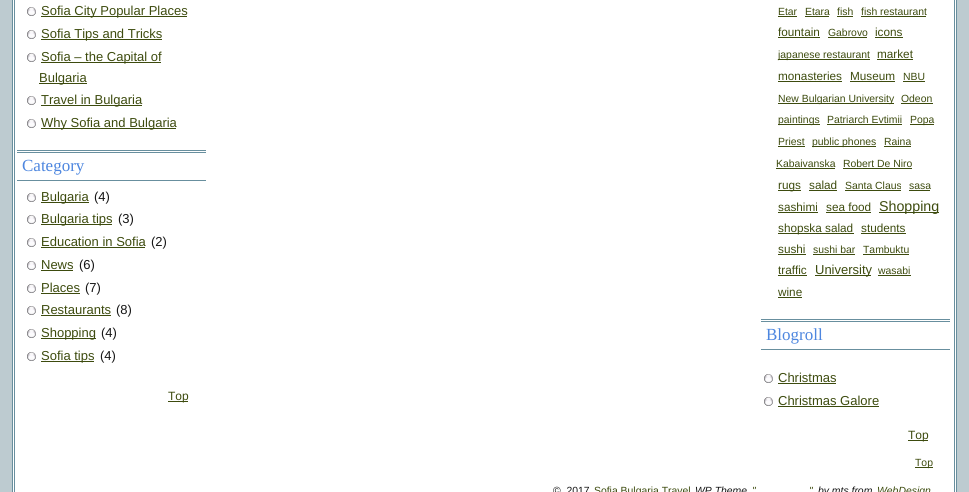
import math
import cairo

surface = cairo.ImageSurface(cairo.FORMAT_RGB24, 969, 492)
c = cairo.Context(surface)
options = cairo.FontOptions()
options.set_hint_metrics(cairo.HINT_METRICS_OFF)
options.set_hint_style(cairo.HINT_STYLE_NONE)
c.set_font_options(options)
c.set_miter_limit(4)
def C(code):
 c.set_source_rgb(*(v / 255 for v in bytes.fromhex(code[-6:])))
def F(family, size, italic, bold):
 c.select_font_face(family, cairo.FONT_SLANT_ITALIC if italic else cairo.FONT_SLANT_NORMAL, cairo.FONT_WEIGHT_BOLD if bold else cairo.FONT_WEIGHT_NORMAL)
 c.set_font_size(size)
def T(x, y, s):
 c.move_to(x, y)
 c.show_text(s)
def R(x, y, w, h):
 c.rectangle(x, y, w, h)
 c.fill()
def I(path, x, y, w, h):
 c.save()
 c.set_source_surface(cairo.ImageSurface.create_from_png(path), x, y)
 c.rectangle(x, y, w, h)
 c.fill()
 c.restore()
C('bdcbd0')
c.paint()
C('ffffff')
c.rectangle(12.5,-.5,944,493)
c.fill_preserve()
C('688f9e')
c.set_line_width(1)
c.stroke()
c.rectangle(14.5,-.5,940,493)
c.stroke()
I('1.png',27,7,9,9)
C('3d4b0e')
R(41,16,146,1)
F('Liberation Sans',13,0,0)
T(41,15,'Sofia City Popular Places')
I('1.png',27,30,9,9)
R(41,39,121,1)
T(41,38,'Sofia Tips and Tricks')
I('1.png',27,53,9,9)
R(41,62,120,1)
T(41,61,'Sofia – the Capital of')
R(39,83,48,1)
T(39,82,'Bulgaria')
I('1.png',27,96,9,9)
R(41,105,101,1)
T(41,104,'Travel in Bulgaria')
I('1.png',27,119,9,9)
R(41,128,135,1)
T(41,127,'Why Sofia and Bulgaria')
C('688f9e')
R(17,150,189,1)
R(17,152,189,1)
R(17,180,189,1)
F('Liberation Serif',17,0,0)
C('4d86df')
T(22,171,'Category')
I('1.png',27,193,9,9)
C('3d4b0e')
R(41,202,48,1)
F('Liberation Sans',13,0,0)
T(41,201,'Bulgaria')
C('151515')
T(94,201,'(4)')
I('1.png',27,215,9,9)
C('3d4b0e')
R(41,224,71,1)
T(41,223,'Bulgaria tips')
C('151515')
T(118,223,'(3)')
I('1.png',27,238,9,9)
C('3d4b0e')
T(41,246,'Education in Sofia')
R(41,247,104,1)
C('151515')
T(151,246,'(2)')
I('1.png',27,261,9,9)
C('3d4b0e')
T(41,269,'News')
R(41,270,32,1)
C('151515')
T(79,269,'(6)')
I('1.png',27,284,9,9)
C('3d4b0e')
T(41,292,'Places')
R(41,293,39,1)
C('151515')
T(85,292,'(7)')
I('1.png',27,306,9,9)
C('3d4b0e')
T(41,314,'Restaurants')
R(41,315,70,1)
C('151515')
T(116,314,'(8)')
I('1.png',27,329,9,9)
C('3d4b0e')
R(41,338,55,1)
T(41,337,'Shopping')
C('151515')
T(101,337,'(4)')
I('1.png',27,352,9,9)
C('3d4b0e')
R(41,361,53,1)
T(41,360,'Sofia tips')
C('151515')
T(100,360,'(4)')
C('3d4b0e')
R(168,401,20,1)
F('Liberation Sans',12,0,0)
T(168,400,'Top')
F('Liberation Sans',10.4,0,0)
T(778,15,'Etar')
R(778,16,19,1)
T(805,15,'Etara')
R(805,16,24,1)
T(837,15,'fish')
R(837,16,16,1)
T(861,15,'fish restaurant')
R(861,16,65,1)
F('Liberation Sans',11.75,0,0)
T(778,36,'fountain')
R(778,37,42,1)
F('Liberation Sans',10.4,0,0)
T(828,36,'Gabrovo')
R(828,37,39,1)
F('Liberation Sans',11.75,0,0)
T(875,36,'icons')
R(875,37,28,1)
R(778,59,92,1)
F('Liberation Sans',10.4,0,0)
T(778,58,'japanese restaurant')
F('Liberation Sans',11.75,0,0)
T(877,58,'market')
R(877,59,36,1)
T(778,80,'monasteries')
R(778,81,64,1)
T(850,80,'Museum')
R(850,81,45,1)
F('Liberation Sans',10.4,0,0)
T(903,80,'NBU')
R(903,81,22,1)
R(778,103,116,1)
T(778,102,'New Bulgarian University')
T(901,102,'Odeon')
R(901,103,32,1)
R(778,124,42,1)
T(778,123,'paintings')
T(827,123,'Patriarch Evtimii')
R(827,124,75,1)
R(910,124,24,1)
T(910,123,'Popa')
T(778,145,'Priest')
R(778,146,27,1)
R(812,146,64,1)
T(812,145,'public phones')
T(884,145,'Raina')
R(884,146,27,1)
T(776,167,'Kabaivanska')
R(776,168,59,1)
T(843,167,'Robert De Niro')
R(843,168,69,1)
R(778,190,23,1)
F('Liberation Sans',11.75,0,0)
T(778,189,'rugs')
T(809,189,'salad')
R(809,190,28,1)
F('Liberation Sans',10.4,0,0)
T(845,189,'Santa Claus')
R(845,190,56,1)
T(909,189,'sasa')
R(909,190,21,1)
F('Liberation Sans',11.75,0,0)
T(778,211,'sashimi')
R(778,212,40,1)
T(826,211,'sea food')
R(826,212,45,1)
R(879,212,60,1)
F('Liberation Sans',14.25,0,0)
T(879,211,'Shopping')
R(778,233,76,1)
F('Liberation Sans',11.75,0,0)
T(778,232,'shopska salad')
T(861,232,'students')
R(861,233,45,1)
T(778,253,'sushi')
R(778,254,28,1)
F('Liberation Sans',10.4,0,0)
T(813,253,'sushi bar')
R(813,254,42,1)
T(863,253,'Tambuktu')
R(863,254,46,1)
F('Liberation Sans',11.75,0,0)
T(778,274,'traffic')
R(778,275,29,1)
R(815,275,56,1)
F('Liberation Sans',13,0,0)
T(815,274,'University')
F('Liberation Sans',10.4,0,0)
T(878,274,'wasabi')
R(878,275,33,1)
F('Liberation Sans',11.75,0,0)
T(778,296,'wine')
R(778,297,24,1)
C('688f9e')
R(761,319,189,1)
R(761,321,189,1)
R(761,349,189,1)
F('Liberation Serif',17,0,0)
C('4d86df')
T(766,340,'Blogroll')
I('1.png',764,374,9,9)
F('Liberation Sans',13,0,0)
C('3d4b0e')
T(778,382,'Christmas')
R(778,383,58,1)
I('1.png',764,397,9,9)
T(778,405,'Christmas Galore')
R(778,406,101,1)
R(908,440,20,1)
F('Liberation Sans',12,0,0)
T(908,439,'Top')
R(915,467,18,1)
F('Liberation Sans',10.4,0,0)
T(915,466,'Top')
C('151515')
T(553,494,'©  2017')
C('3d4b0e')
T(594,494,'Sofia Bulgaria Travel')
F('Liberation Sans',10.4,1,0)
C('151515')
T(695,494,'WP Theme')
C('3d4b0e')
T(752,494,'"')
T(809,494,'"')
C('151515')
T(818,494,'by mts from')
C('3d4b0e')
T(877,494,'WebDesign')
surface.write_to_png('o.png')
